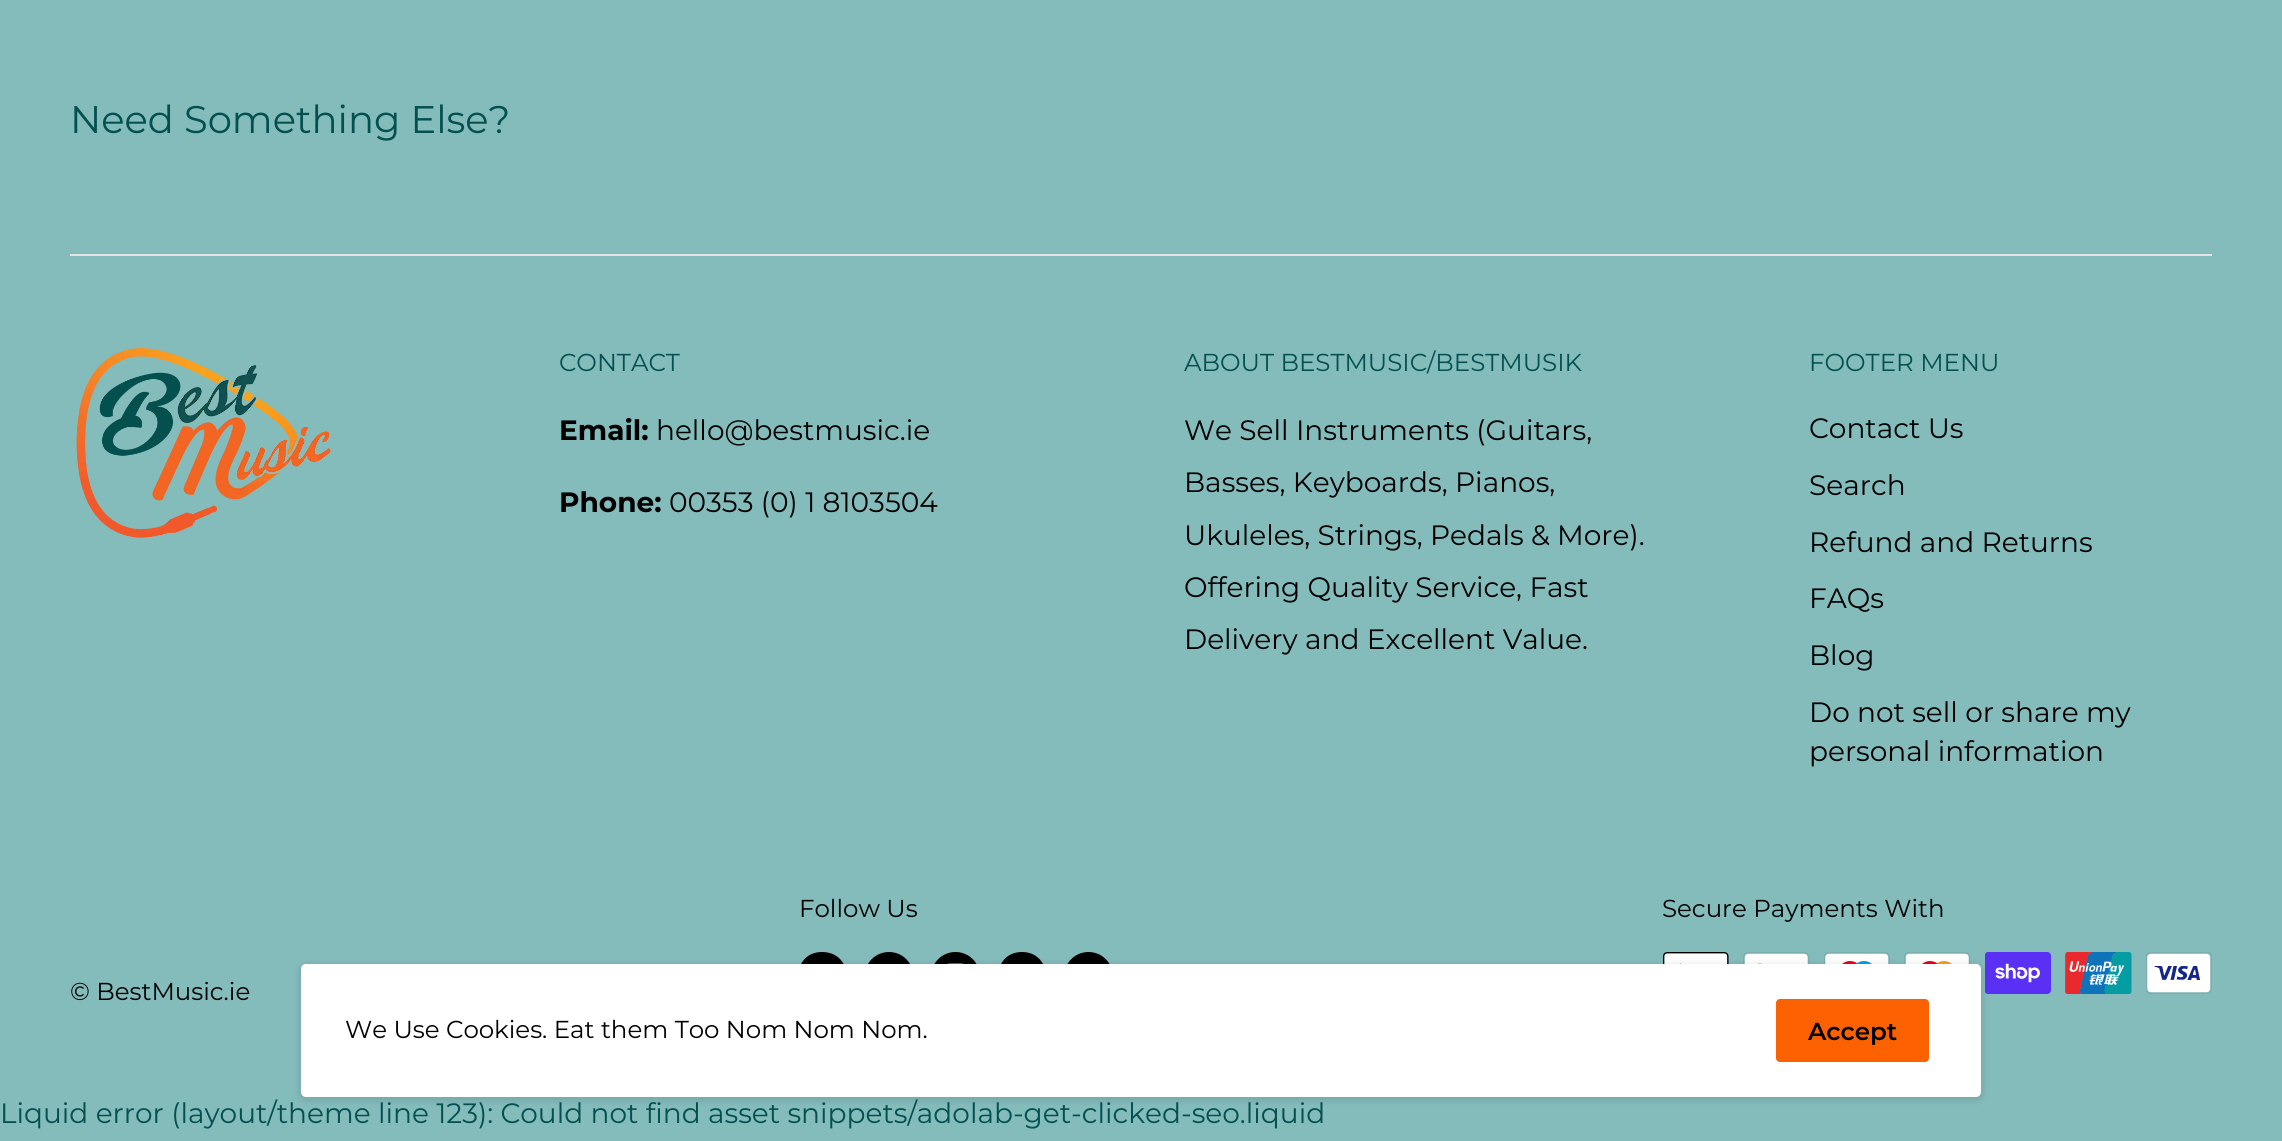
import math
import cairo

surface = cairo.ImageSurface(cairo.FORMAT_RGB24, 2282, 1141)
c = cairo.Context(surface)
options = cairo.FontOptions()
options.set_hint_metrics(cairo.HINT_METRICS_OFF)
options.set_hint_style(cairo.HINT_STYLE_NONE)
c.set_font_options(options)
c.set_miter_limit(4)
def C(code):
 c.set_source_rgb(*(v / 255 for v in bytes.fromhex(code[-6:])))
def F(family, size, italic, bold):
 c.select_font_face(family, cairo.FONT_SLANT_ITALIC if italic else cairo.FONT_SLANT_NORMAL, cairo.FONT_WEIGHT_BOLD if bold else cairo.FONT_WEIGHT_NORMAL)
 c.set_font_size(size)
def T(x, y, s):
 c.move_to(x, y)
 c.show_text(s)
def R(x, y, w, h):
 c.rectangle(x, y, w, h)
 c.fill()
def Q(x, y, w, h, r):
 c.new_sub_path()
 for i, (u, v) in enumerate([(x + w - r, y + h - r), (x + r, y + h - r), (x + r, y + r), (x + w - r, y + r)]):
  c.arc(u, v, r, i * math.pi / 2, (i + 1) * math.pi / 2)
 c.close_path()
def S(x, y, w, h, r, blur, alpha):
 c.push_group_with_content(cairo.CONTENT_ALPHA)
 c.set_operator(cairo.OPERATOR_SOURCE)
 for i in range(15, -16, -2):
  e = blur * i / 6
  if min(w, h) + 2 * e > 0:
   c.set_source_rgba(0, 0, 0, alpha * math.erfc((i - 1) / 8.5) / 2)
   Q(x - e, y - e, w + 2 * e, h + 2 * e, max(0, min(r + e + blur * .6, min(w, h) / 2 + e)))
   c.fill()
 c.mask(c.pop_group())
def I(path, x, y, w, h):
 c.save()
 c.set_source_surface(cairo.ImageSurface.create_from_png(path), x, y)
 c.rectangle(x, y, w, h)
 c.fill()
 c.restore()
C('84bbbb')
c.paint()
F('Montserrat Thin',38.5,0,0)
C('035050')
T(70,133,'Need Something Else?')
C('e1e3e4')
R(70,254,2142,2)
I('1.png',76,347,255,191)
F('Montserrat Thin',24.5,0,0)
C('035050')
T(559,371,'CONTACT')
F('Montserrat',28,0,1)
C('000000')
T(559,440,'Email:')
F('Montserrat Thin',28,0,0)
T(656,440,'hello@bestmusic.ie')
F('Montserrat',28,0,1)
T(559,512,'Phone:')
F('Montserrat Thin',28,0,0)
T(669,512,'00353 (0) 1 8103504')
F('Montserrat Thin',24.5,0,0)
C('035050')
T(1184,371,'ABOUT BESTMUSIC/BESTMUSIK')
F('Montserrat Thin',28,0,0)
C('000000')
T(1184,440,'We Sell Instruments (Guitars,')
T(1184,492,'Basses, Keyboards, Pianos,')
T(1184,545,'Ukuleles, Strings, Pedals & More).')
T(1184,597,'Offering Quality Service, Fast')
T(1184,649,'Delivery and Excellent Value.')
F('Montserrat Thin',24.5,0,0)
C('035050')
T(1809,371,'FOOTER MENU')
F('Montserrat Thin',28,0,0)
C('000000')
T(1809,438,'Contact Us')
T(1809,495,'Search')
T(1809,552,'Refund and Returns')
T(1809,608,'FAQs')
T(1809,665,'Blog')
T(1809,722,'Do not sell or share my')
T(1809,761,'personal information')
F('Montserrat Thin',24.5,0,0)
T(799,917,'Follow Us')
c.set_fill_rule(cairo.FILL_RULE_EVEN_ODD)
c.new_path()
c.move_to(822,1001)
c.curve_to(790,1001,790,952,822,952)
c.curve_to(855,952,855,1001,822,1001)
c.close_path()
c.move_to(828,973)
c.line_to(824,973)
c.curve_to(824,969,824,968,828,968)
c.line_to(828,964)
c.curve_to(820,964,819,966,819,973)
c.line_to(817,973)
c.line_to(817,977)
c.line_to(819,976)
c.line_to(819,989)
c.line_to(824,989)
c.line_to(824,976)
c.line_to(828,976)
c.close_path()
c.fill()
I('2.png',868,952,42,12)
I('3.png',934,952,43,12)
c.new_path()
c.move_to(1022,1001)
c.curve_to(1054,1001,1054,952,1022,952)
c.curve_to(990,952,990,1001,1022,1001)
c.close_path()
c.move_to(1035,970)
c.line_to(1035,979)
c.curve_to(1035,987,1030,985,1022,985)
c.line_to(1011,985)
c.line_to(1009,983)
c.line_to(1009,974)
c.curve_to(1009,966,1013,968,1021,968)
c.line_to(1033,968)
c.close_path()
c.move_to(1019,980)
c.line_to(1026,977)
c.line_to(1019,973)
c.close_path()
c.fill()
I('4.png',1067,952,43,12)
T(1662,917,'Secure Payments With')
I('5.png',1663,952,66,12)
I('6.png',1743,952,67,12)
I('7.png',1824,952,66,12)
I('8.png',1904,952,67,12)
I('9.png',1985,952,66,42)
I('10.png',2065,952,67,42)
I('11.png',2146,952,66,42)
T(70,1000,'© BestMusic.ie')
C('000000')
S(299,964,1684,137,7,3.5,.1)
C('ffffff')
Q(301,964,1680,133,5)
c.fill()
C('000000')
T(345,1038,'We Use Cookies. Eat them Too Nom Nom Nom.')
C('fc6100')
Q(1776,999,153,63,4)
c.fill()
F('Montserrat SemiBold',24.5,0,0)
C('000000')
T(1808,1040,'Accept')
F('Montserrat Thin',28,0,0)
C('035050')
T(0,1123,'Liquid error (layout/theme line 123): Could not find asset snippets/adolab-get-clicked-seo.liquid')
surface.write_to_png('o.png')
